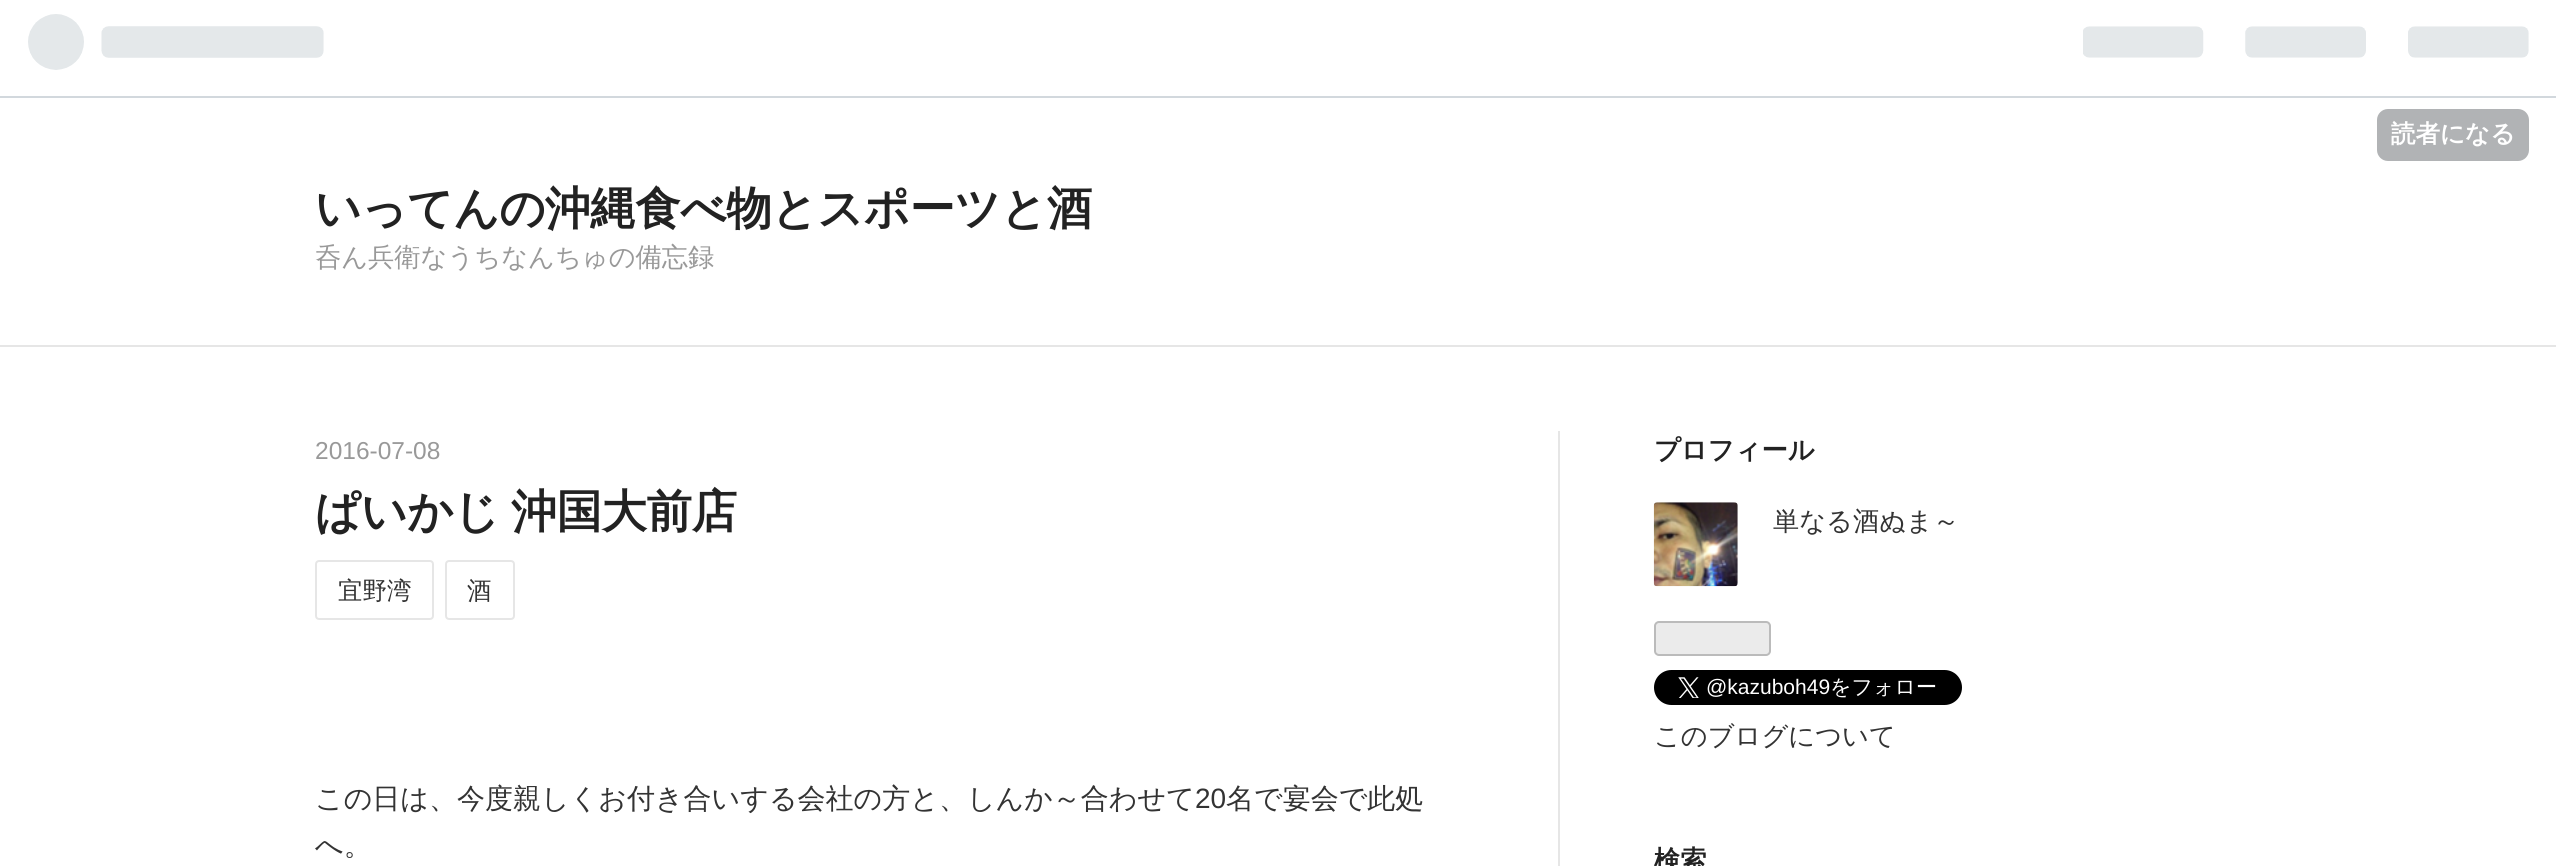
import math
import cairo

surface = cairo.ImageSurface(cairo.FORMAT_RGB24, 2556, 866)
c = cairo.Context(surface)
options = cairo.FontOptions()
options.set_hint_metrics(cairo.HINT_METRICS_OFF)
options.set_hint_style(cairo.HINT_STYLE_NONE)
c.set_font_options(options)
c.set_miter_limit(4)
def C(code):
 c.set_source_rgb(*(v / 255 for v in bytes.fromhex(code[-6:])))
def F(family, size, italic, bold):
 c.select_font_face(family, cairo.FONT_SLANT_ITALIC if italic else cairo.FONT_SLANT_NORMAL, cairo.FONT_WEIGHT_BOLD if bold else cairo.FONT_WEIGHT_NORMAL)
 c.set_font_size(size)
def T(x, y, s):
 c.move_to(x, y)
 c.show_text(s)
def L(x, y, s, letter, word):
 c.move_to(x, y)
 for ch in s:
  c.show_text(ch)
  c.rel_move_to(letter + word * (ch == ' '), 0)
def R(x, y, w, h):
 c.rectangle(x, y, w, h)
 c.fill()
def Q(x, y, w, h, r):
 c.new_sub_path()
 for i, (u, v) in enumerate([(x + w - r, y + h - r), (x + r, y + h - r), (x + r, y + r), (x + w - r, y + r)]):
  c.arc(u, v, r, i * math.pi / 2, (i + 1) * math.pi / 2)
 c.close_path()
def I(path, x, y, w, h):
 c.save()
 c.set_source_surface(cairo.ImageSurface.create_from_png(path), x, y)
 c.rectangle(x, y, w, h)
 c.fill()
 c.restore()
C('ffffff')
c.paint()
C('d2d8dd')
R(0,96,2556,2)
I('1.png',28,14,296,56)
I('2.png',2083,26,446,32)
C('b1b3b5')
Q(2377,109,152,52,11)
c.fill()
F('WenQuanYi Zen Hei',24.5,0,1)
C('ffffff')
T(2391,142,'読者になる')
F('WenQuanYi Zen Hei',45.5,0,1)
C('222222')
L(315,224,'いってんの沖縄食べ物とスポーツと酒',-.5,0)
F('WenQuanYi Zen Hei Medium',26.25,0,0)
C('999999')
T(315,266,'呑ん兵衛なうちなんちゅの備忘録')
C('e6e6e6')
R(0,345,2556,2)
R(1558,431,2,435)
F('Liberation Sans',24.5,0,0)
C('999999')
T(315,459,'2016-07-08')
F('WenQuanYi Zen Hei',45.5,0,1)
C('222222')
L(315,527,'ぱいかじ 沖国大前店',-.5,-1)
Q(316,561,117,58,3)
C('e6e6e6')
c.stroke()
F('WenQuanYi Zen Hei Medium',24.5,0,0)
C('333333')
T(338,599,'宜野湾')
Q(446,561,68,58,3)
C('e6e6e6')
c.stroke()
C('333333')
T(467,599,'酒')
F('WenQuanYi Zen Hei Medium',28,0,0)
T(315,808,'この日は、今度親しくお付き合いする会社の方と、しんか～合わせて')
F('Liberation Sans',28,0,0)
T(1195,808,'20')
F('WenQuanYi Zen Hei Medium',28,0,0)
T(1226,808,'名で宴会で此処')
T(315,855,'へ。')
F('WenQuanYi Zen Hei',26.25,0,1)
C('222222')
T(1654,459,'プロフィール')
I('3.png',1653,502,85,85)
F('WenQuanYi Zen Hei Medium',26.25,0,0)
C('333333')
T(1773,530,'単なる酒ぬま～')
C('ebebeb')
Q(1655,622,115,33,4)
c.fill_preserve()
C('bbbbbb')
c.stroke()
C('000000')
Q(1654,670,308,35,17.5)
c.fill()
I('4.png',1678,677,21,21)
F('Liberation Sans',21,0,0)
C('ffffff')
T(1706,694,'@kazuboh49')
F('WenQuanYi Zen Hei Medium',21,0,0)
T(1830,694,'をフォロー')
F('WenQuanYi Zen Hei Medium',26.25,0,0)
C('333333')
T(1654,745,'このブログについて')
F('WenQuanYi Zen Hei',26.25,0,1)
C('222222')
T(1654,869,'検索')
surface.write_to_png('o.png')
